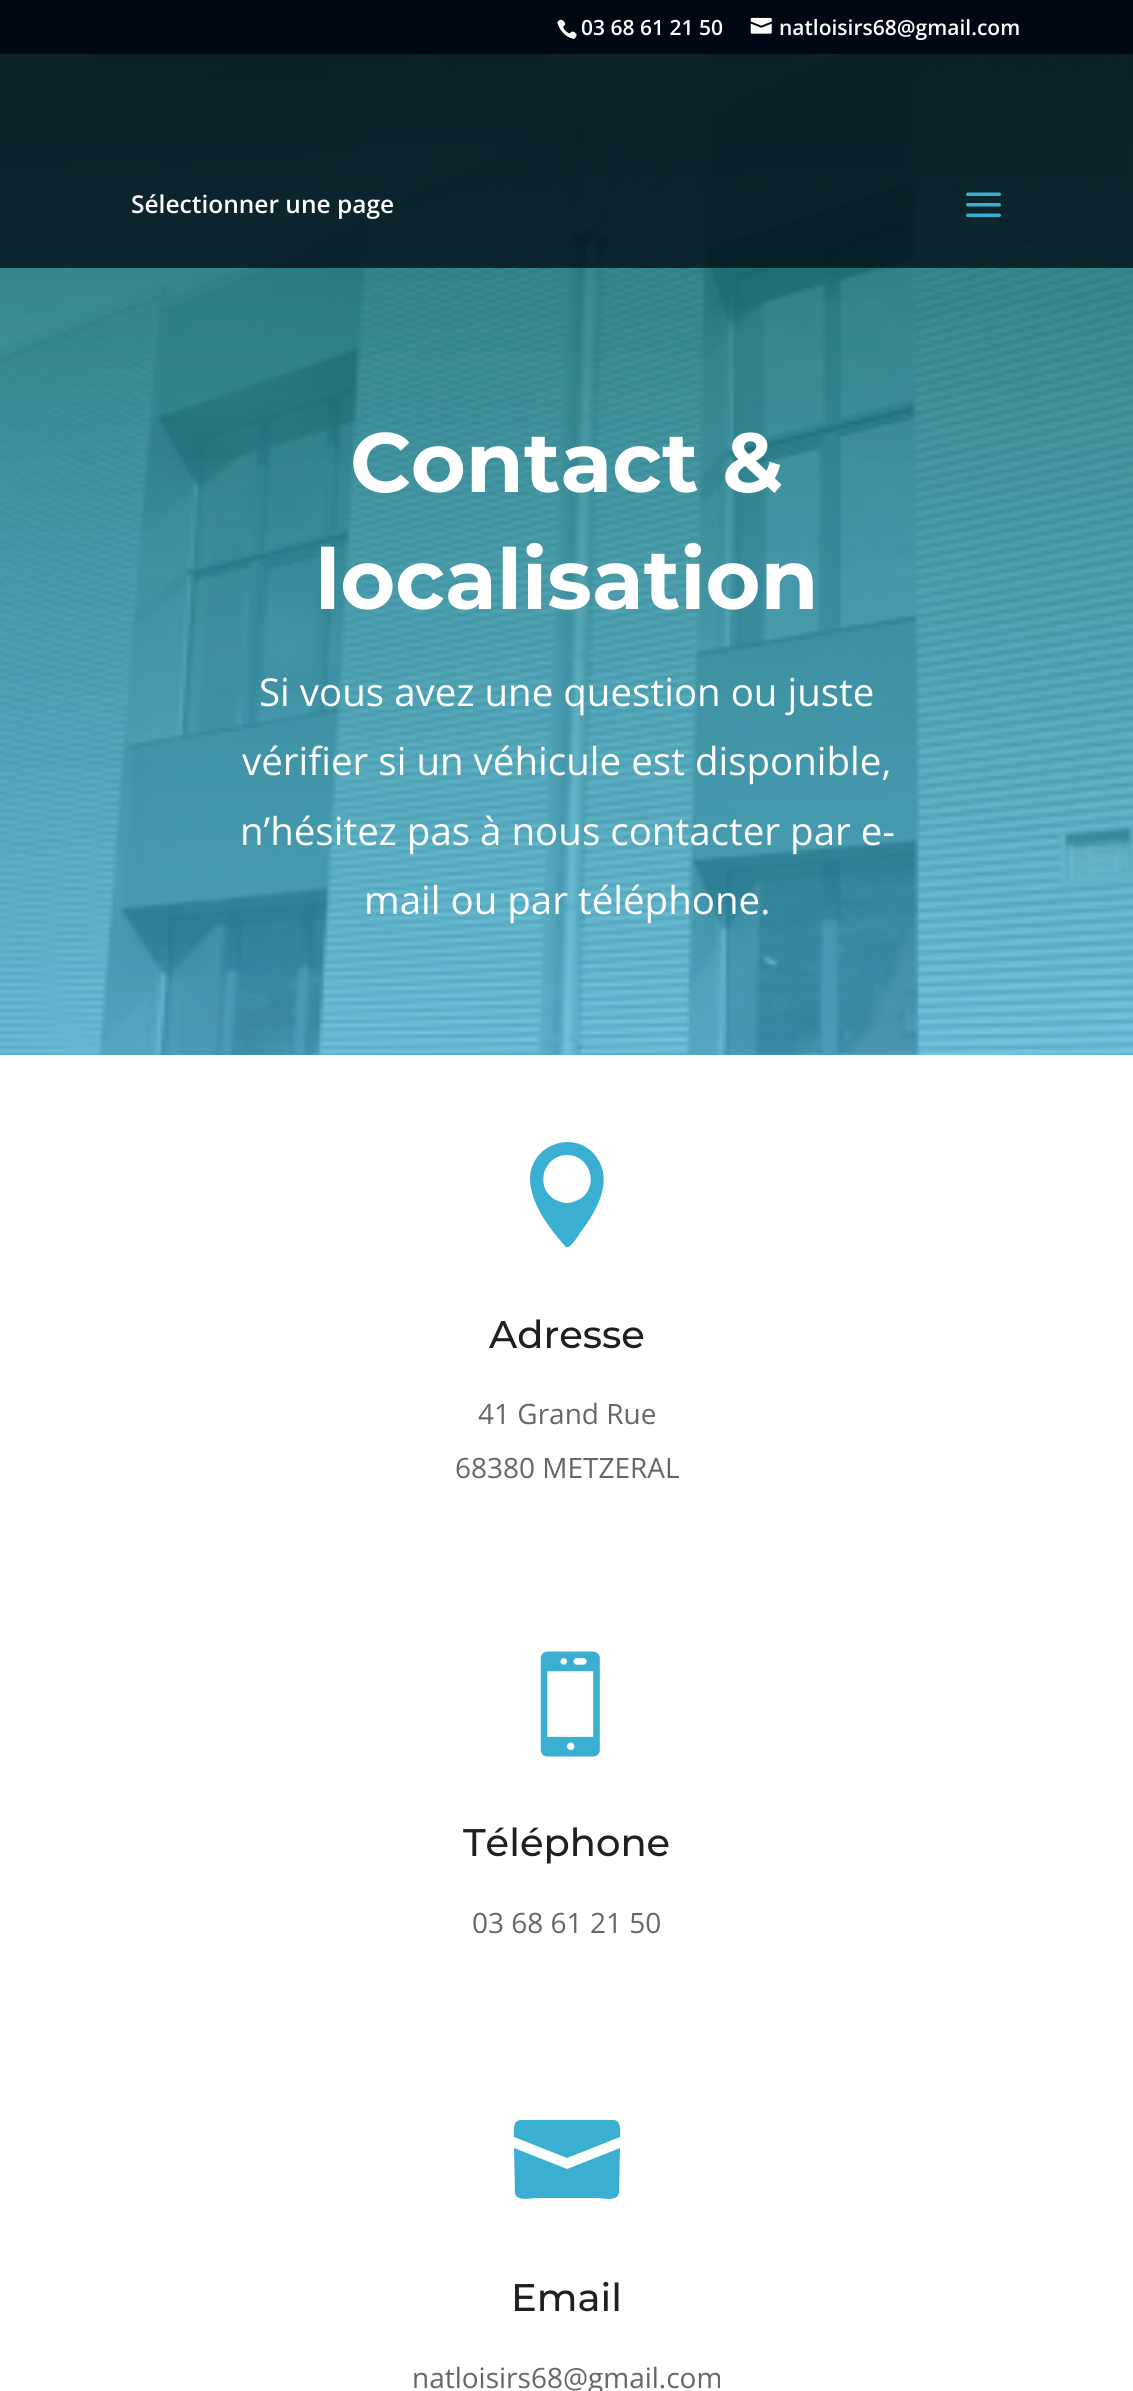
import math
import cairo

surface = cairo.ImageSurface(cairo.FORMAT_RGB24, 1133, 2391)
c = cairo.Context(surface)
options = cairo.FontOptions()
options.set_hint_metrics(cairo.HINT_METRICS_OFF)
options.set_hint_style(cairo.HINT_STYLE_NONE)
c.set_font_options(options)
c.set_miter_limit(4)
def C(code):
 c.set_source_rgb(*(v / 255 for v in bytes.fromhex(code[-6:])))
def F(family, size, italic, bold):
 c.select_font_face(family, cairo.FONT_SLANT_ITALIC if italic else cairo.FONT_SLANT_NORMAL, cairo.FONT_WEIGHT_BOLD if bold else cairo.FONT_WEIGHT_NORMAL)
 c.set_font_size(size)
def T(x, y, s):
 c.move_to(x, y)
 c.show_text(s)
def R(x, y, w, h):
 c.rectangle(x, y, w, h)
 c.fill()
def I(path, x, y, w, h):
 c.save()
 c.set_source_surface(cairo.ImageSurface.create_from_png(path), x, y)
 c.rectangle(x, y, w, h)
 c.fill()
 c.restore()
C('ffffff')
c.paint()
C('000814')
R(0,0,1133,54)
I('1.png',557,19,20,20)
F('Open Sans SemiBold',21,0,0)
C('ffffff')
T(581,35,'03 68 61 21 50')
I('2.png',750,17,22,17)
T(779,35,'natloisirs68@gmail.com')
I('4.png',0,54,1133,1001)
gradient = cairo.LinearGradient(567,0,567,1055)
gradient.add_color_stop_rgba(0,0.067,0.396,0.384,.93)
gradient.add_color_stop_rgba(1,0.231,0.686,0.82,.7)
c.set_source(gradient)
R(0,54,1133,1001)
c.set_source_rgba(0,0.031,0.059,0.75)
R(0,54,1133,214)
F('Open Sans SemiBold',24.5,0,0)
C('ffffff')
T(131,213,'Sélectionner une page')
I('3.png',966,192,35,25)
F('Montserrat Thin',84,0,0)
T(350,492,'Contact &')
T(315,609,'localisation')
F('Open Sans',38.5,0,0)
T(259,706,'Si vous avez une question ou juste')
T(242,775,'vérifier si un véhicule est disponible,')
T(240,845,'n’hésitez pas à nous contacter par e-')
T(364,914,'mail ou par téléphone.')
C('3bafd1')
c.new_path()
c.move_to(565,1246)
c.line_to(566,1247)
c.line_to(568,1247)
c.curve_to(571,1247,579,1235,580,1233)
c.curve_to(596,1212,616,1179,594,1154)
c.curve_to(572,1129,529,1146,530,1180)
c.curve_to(531,1204,549,1228,565,1246)
c.close_path()
c.move_to(567,1155)
c.curve_to(590,1155,600,1186,580,1199)
c.curve_to(576,1201,572,1203,567,1203)
c.curve_to(562,1203,558,1201,554,1199)
c.curve_to(534,1186,544,1155,567,1155)
c.close_path()
c.fill()
F('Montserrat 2 Thin',38.5,0,0)
C('1f1f1f')
T(489,1348,'Adresse')
F('Open Sans',28,0,0)
C('666666')
T(478,1424,'41 Grand Rue')
T(455,1478,'68380 METZERAL')
I('5.png',540,1651,60,106)
F('Montserrat 2 Thin',38.5,0,0)
C('1f1f1f')
T(463,1856,'Téléphone')
F('Open Sans',28,0,0)
C('666666')
T(472,1933,'03 68 61 21 50')
C('3bafd1')
c.new_path()
c.move_to(613,2120)
c.line_to(521,2120)
c.curve_to(512,2120,514,2132,514,2137)
c.line_to(567,2158)
c.line_to(620,2137)
c.curve_to(620,2132,622,2120,613,2120)
c.close_path()
c.move_to(514,2148)
c.line_to(515,2193)
c.curve_to(516,2202,533,2198,536,2198)
c.line_to(598,2198)
c.curve_to(601,2198,618,2202,619,2193)
c.line_to(620,2148)
c.line_to(567,2169)
c.close_path()
c.fill()
F('Montserrat 2 Thin',38.5,0,0)
C('1f1f1f')
T(511,2311,'Email')
F('Open Sans',28,0,0)
C('666666')
T(412,2388,'natloisirs68@gmail.com')
surface.write_to_png('o.png')
